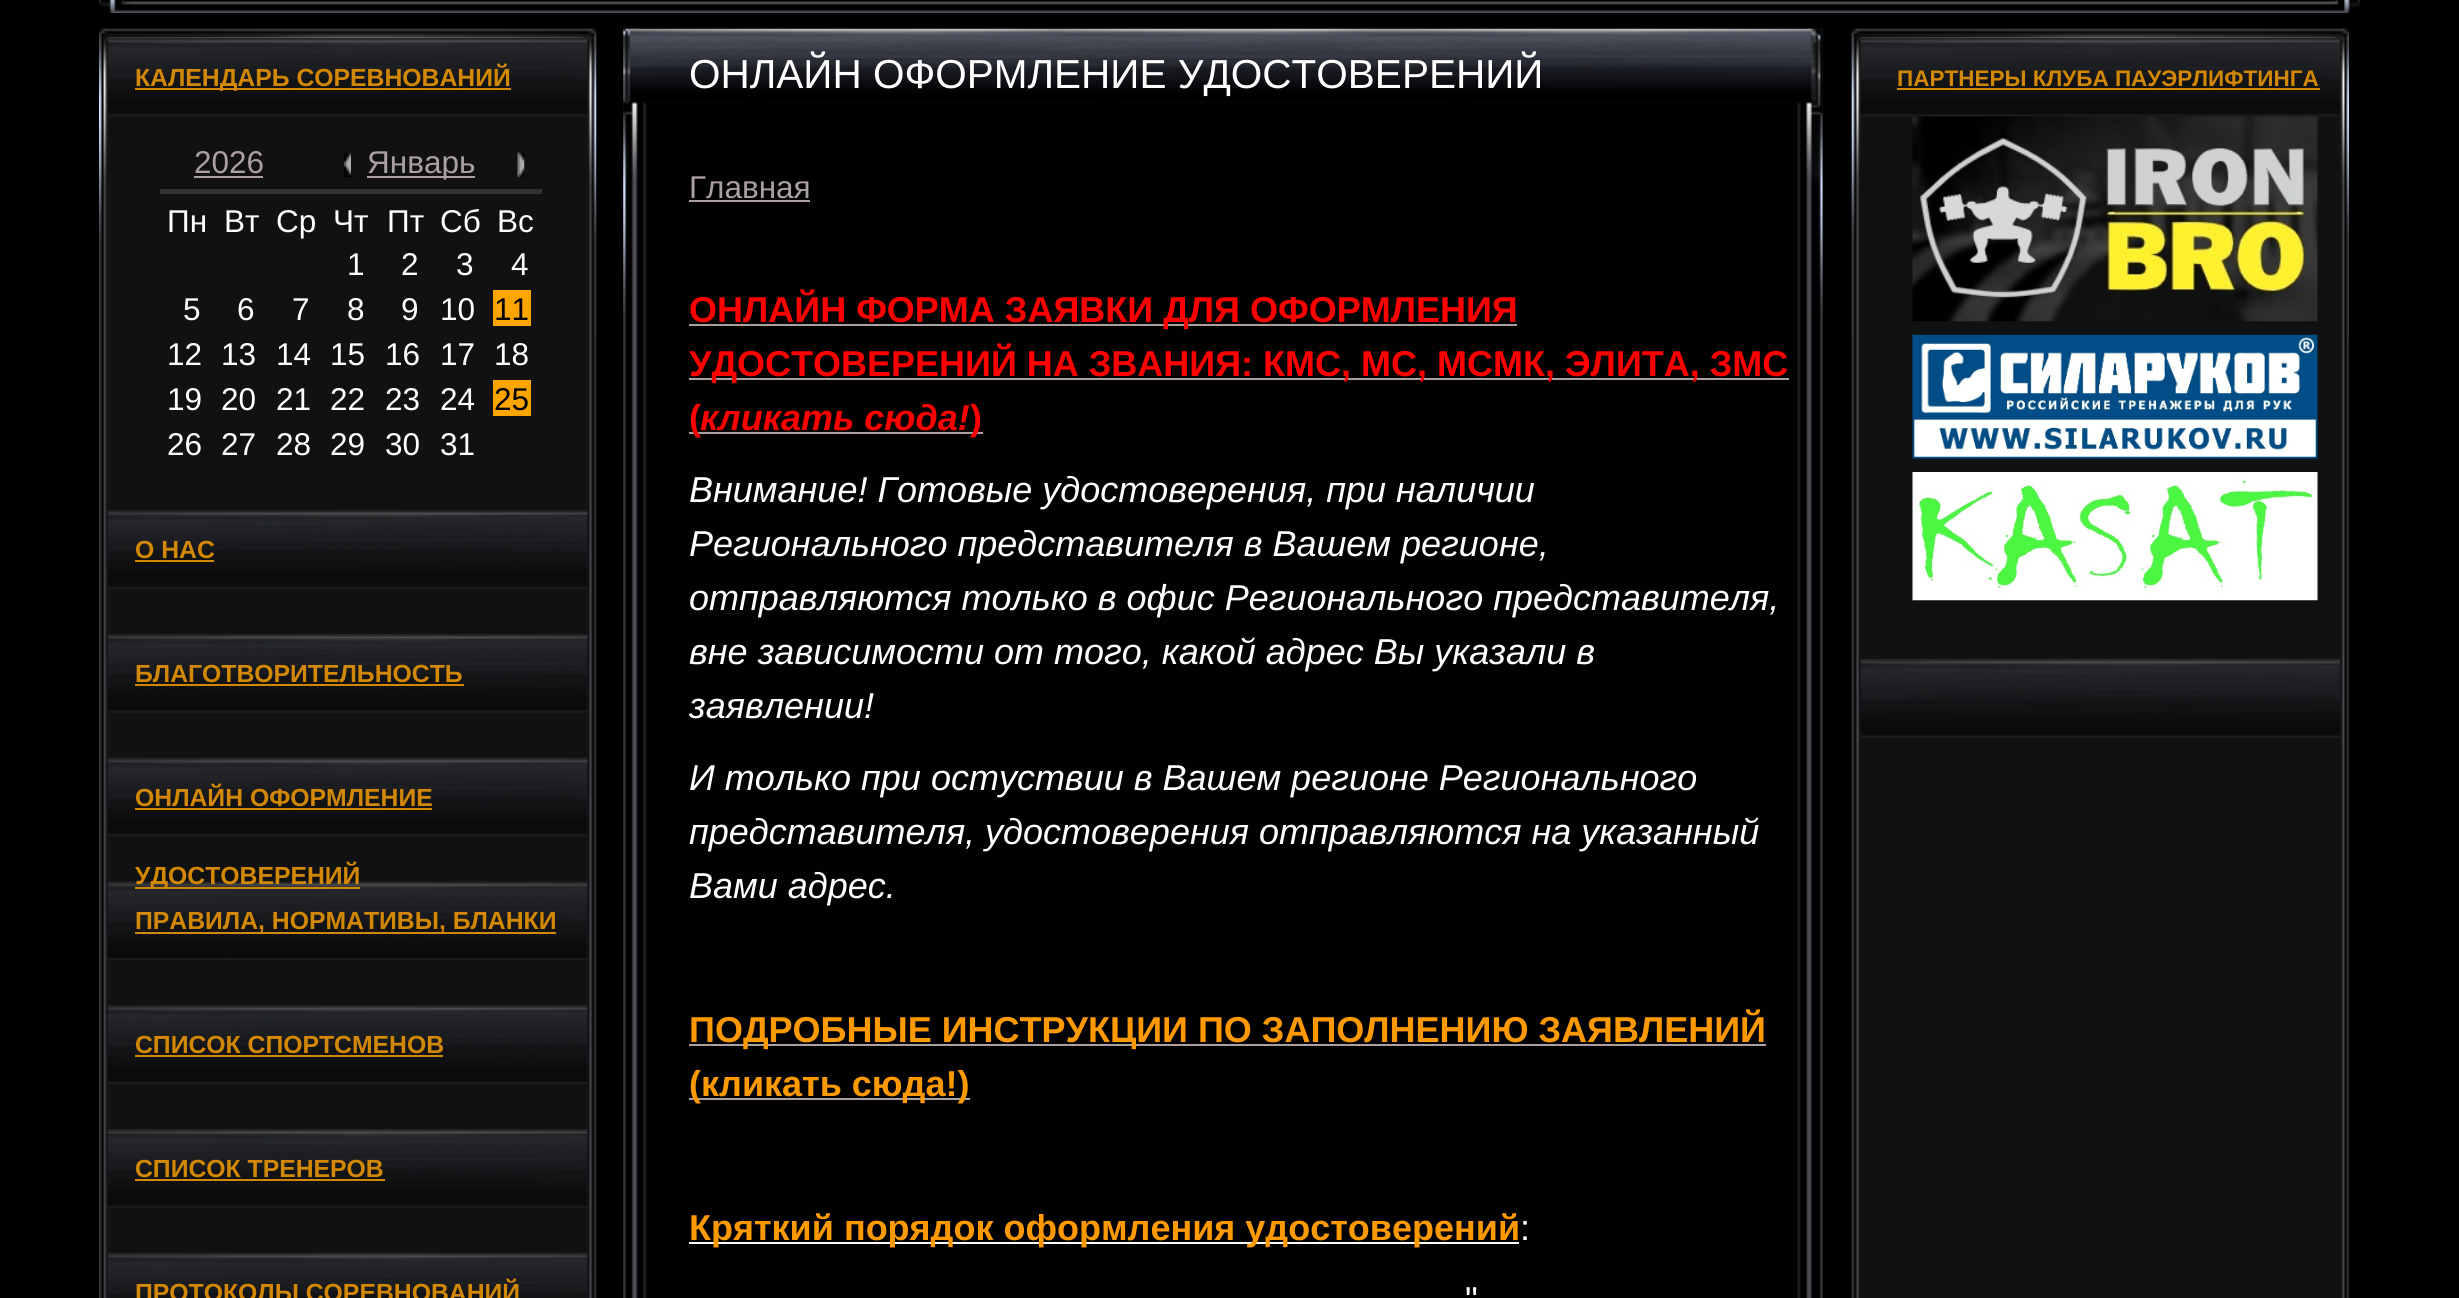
import math
import cairo

surface = cairo.ImageSurface(cairo.FORMAT_RGB24, 2459, 1298)
c = cairo.Context(surface)
options = cairo.FontOptions()
options.set_hint_metrics(cairo.HINT_METRICS_OFF)
options.set_hint_style(cairo.HINT_STYLE_NONE)
c.set_font_options(options)
c.set_miter_limit(4)
def C(code):
 c.set_source_rgb(*(v / 255 for v in bytes.fromhex(code[-6:])))
def F(family, size, italic, bold):
 c.select_font_face(family, cairo.FONT_SLANT_ITALIC if italic else cairo.FONT_SLANT_NORMAL, cairo.FONT_WEIGHT_BOLD if bold else cairo.FONT_WEIGHT_NORMAL)
 c.set_font_size(size)
def T(x, y, s):
 c.move_to(x, y)
 c.show_text(s)
def R(x, y, w, h):
 c.rectangle(x, y, w, h)
 c.fill()
def I(path, x, y, w, h):
 c.save()
 c.set_source_surface(cairo.ImageSurface.create_from_png(path), x, y)
 c.rectangle(x, y, w, h)
 c.fill()
 c.restore()
C('000000')
c.paint()
I('1.png',99,0,2262,13)
I('2.png',99,28,498,1270)
I('3.png',99,28,498,309)
I('4.png',108,37,480,80)
C('d38804')
R(135,88,376,2)
F('Liberation Sans',24.75,0,1)
T(135,86,'КАЛЕНДАРЬ СОРЕВНОВАНИЙ')
C('313131')
R(160,189,382,5)
F('Liberation Sans',31.5,0,0)
C('aba0a0')
T(194,173,'2026')
R(194,176,69,2)
I('5.png',344,152,7,26)
R(367,176,108,2)
T(367,173,'Январь')
I('6.png',517,152,8,26)
C('ffffff')
T(167,232,'Пн')
T(224,232,'Вт')
T(276,232,'Ср')
T(333,232,'Чт')
T(387,232,'Пт')
T(440,232,'Сб')
T(497,232,'Вс')
T(347,275,'1')
T(401,275,'2')
T(456,275,'3')
T(511,275,'4')
T(183,320,'5')
T(237,320,'6')
T(292,320,'7')
T(347,320,'8')
T(401,320,'9')
T(440,320,'10')
C('ffa500')
R(493,290,38,36)
C('000000')
T(494,320,'11')
C('ffffff')
T(167,365,'12')
T(221,365,'13')
T(276,365,'14')
T(330,365,'15')
T(385,365,'16')
T(440,365,'17')
T(494,365,'18')
T(167,410,'19')
T(221,410,'20')
T(276,410,'21')
T(330,410,'22')
T(385,410,'23')
T(440,410,'24')
C('ffa500')
R(493,380,38,36)
C('000000')
T(494,410,'25')
C('ffffff')
T(167,455,'26')
T(221,455,'27')
T(276,455,'28')
T(330,455,'29')
T(385,455,'30')
T(440,455,'31')
I('7.png',108,510,480,79)
F('Liberation Sans',24.75,0,1)
C('d38804')
T(135,558,'О НАС')
R(135,560,79,2)
I('8.png',108,634,480,79)
T(135,682,'БЛАГОТВОРИТЕЛЬНОСТЬ')
R(135,684,329,2)
I('9.png',108,757,480,80)
T(135,806,'ОНЛАЙН ОФОРМЛЕНИЕ')
R(135,808,297,2)
I('10.png',108,881,480,79)
R(135,887,225,2)
T(135,884,'УДОСТОВЕРЕНИЙ')
R(135,932,421,2)
T(135,929,'ПРАВИЛА, НОРМАТИВЫ, БЛАНКИ')
I('7.png',108,1005,480,79)
T(135,1053,'СПИСОК СПОРТСМЕНОВ')
R(135,1055,308,2)
I('8.png',108,1129,480,79)
T(135,1177,'СПИСОК ТРЕНЕРОВ')
R(135,1179,250,2)
I('11.png',108,1252,480,46)
T(135,1301,'ПРОТОКОЛЫ СОРЕВНОВАНИЙ')
I('12.png',623,28,1200,1270)
I('13.png',623,28,1200,287)
F('Liberation Sans',40.5,0,0)
C('ffffff')
T(689,88,'ОНЛАЙН ОФОРМЛЕНИЕ УДОСТОВЕРЕНИЙ')
F('Liberation Sans',31.5,0,0)
C('aba0a0')
T(689,198,'Главная')
R(689,200,121,2)
R(689,324,828,2)
F('Liberation Sans',36,0,1)
C('ff0000')
T(689,322,'ОНЛАЙН ФОРМА ЗАЯВКИ ДЛЯ ОФОРМЛЕНИЯ')
C('aba0a0')
R(689,378,1100,2)
C('ff0000')
T(689,376,'УДОСТОВЕРЕНИЙ НА ЗВАНИЯ: КМС, МС, МСМК, ЭЛИТА, ЗМС')
C('aba0a0')
R(689,432,11,2)
C('ff0000')
T(689,430,'(')
C('aba0a0')
R(700,432,283,2)
F('Liberation Sans',36,1,1)
C('ff0000')
T(700,430,'кликать сюда!')
F('Liberation Sans',36,0,1)
T(970,430,')')
F('Liberation Sans',36,1,0)
C('ffffff')
T(689,502,'Внимание! Готовые удостоверения, при наличии')
T(689,556,'Регионального представителя в Вашем регионе,')
T(689,610,'отправляются только в офис Регионального представителя,')
T(689,664,'вне зависимости от того, какой адрес Вы указали в')
T(689,718,'заявлении!')
T(689,790,'И только при остуствии в Вашем регионе Регионального')
T(689,844,'представителя, удостоверения отправляются на указанный')
T(689,898,'Вами адрес.')
C('aba0a0')
R(689,1044,1077,2)
F('Liberation Sans',36,0,1)
C('ff9900')
T(689,1042,'ПОДРОБНЫЕ ИНСТРУКЦИИ ПО ЗАПОЛНЕНИЮ ЗАЯВЛЕНИЙ')
C('aba0a0')
R(689,1098,281,2)
C('ff9900')
T(689,1096,'(кликать сюда!)')
C('ffffff')
R(689,1242,830,2)
C('ff9900')
T(689,1240,'Кряткий порядок оформления удостоверений')
F('Liberation Sans',36,0,0)
C('ffffff')
T(1520,1240,':')
T(1465,1312,'"')
I('14.png',1851,28,498,1270)
I('15.png',1851,28,498,309)
I('16.png',1860,37,480,80)
F('Liberation Sans',22.5,0,1)
C('d38804')
T(1897,86,'ПАРТНЕРЫ КЛУБА ПАУЭРЛИФТИНГА')
R(1897,88,423,2)
I('17.png',1912,116,406,206)
I('18.png',1912,334,406,125)
I('19.png',1912,472,406,129)
I('20.png',1860,658,480,80)
surface.write_to_png('o.png')
